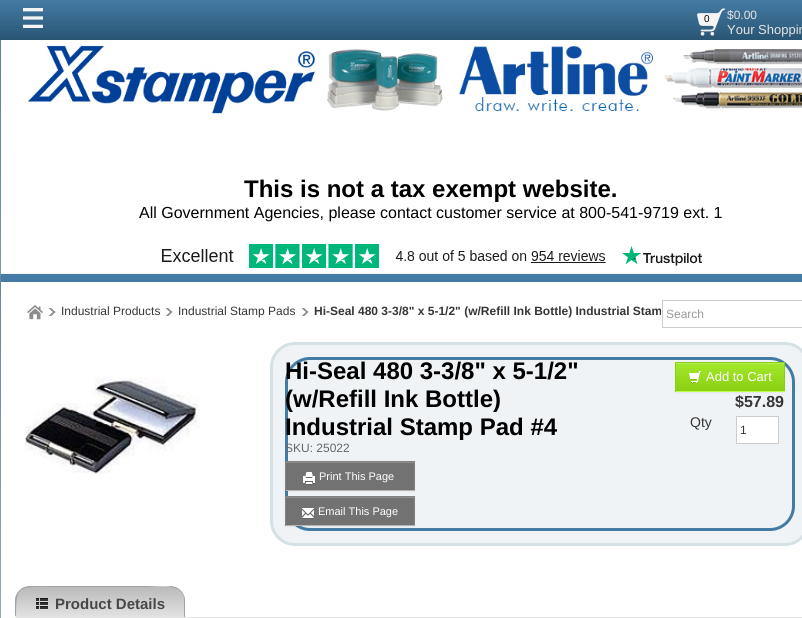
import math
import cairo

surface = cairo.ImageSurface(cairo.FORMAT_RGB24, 802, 618)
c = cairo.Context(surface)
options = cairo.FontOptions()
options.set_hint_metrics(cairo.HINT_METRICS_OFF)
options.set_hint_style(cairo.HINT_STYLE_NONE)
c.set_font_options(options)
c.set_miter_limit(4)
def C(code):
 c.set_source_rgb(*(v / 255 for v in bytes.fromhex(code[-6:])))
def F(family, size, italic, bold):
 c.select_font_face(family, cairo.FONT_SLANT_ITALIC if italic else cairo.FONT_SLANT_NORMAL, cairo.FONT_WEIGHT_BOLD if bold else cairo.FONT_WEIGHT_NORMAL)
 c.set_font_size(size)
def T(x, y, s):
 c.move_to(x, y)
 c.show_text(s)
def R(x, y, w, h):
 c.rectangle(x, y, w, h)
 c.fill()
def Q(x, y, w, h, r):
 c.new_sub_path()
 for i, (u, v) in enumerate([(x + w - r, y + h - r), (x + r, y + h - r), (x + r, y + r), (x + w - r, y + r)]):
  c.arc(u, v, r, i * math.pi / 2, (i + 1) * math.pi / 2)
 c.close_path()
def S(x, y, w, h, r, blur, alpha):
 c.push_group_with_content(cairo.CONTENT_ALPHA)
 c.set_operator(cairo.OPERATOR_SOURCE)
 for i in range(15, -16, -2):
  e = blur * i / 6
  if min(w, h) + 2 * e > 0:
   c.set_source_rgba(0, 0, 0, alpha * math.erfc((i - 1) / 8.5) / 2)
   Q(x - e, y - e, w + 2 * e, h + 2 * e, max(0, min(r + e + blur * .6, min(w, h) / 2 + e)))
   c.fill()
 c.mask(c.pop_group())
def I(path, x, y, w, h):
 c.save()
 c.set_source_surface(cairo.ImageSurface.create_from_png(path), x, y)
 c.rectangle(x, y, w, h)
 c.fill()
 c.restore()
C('ffffff')
c.paint()
I('1.png',0,0,802,618)
C('ffffff')
R(1,40,801,578)
gradient = cairo.LinearGradient(431,2,431,40)
gradient.add_color_stop_rgba(0,0.267,0.482,0.643,1)
gradient.add_color_stop_rgba(1,0.161,0.333,0.451,1)
c.set_source(gradient)
R(1,8,801,1)
I('2.png',23,8,20,20)
I('3.png',697,8,28,28)
F('Liberation Sans',10,0,0)
C('000000')
T(704,22,'0')
F('Liberation Sans',12,0,0)
C('e4e4e4')
T(727,19,'$0.00')
F('Liberation Sans',13,0,0)
T(727,34,'Your Shoppin')
I('4.png',28,42,774,72)
F('Liberation Sans',24,0,1)
C('000000')
T(244,197,'This is not a tax exempt website.')
F('Liberation Sans',16,0,0)
T(139,218,'All Government Agencies, please contact customer service at 800-541-9719 ext. 1')
I('5.png',162,244,540,24)
c.save()
c.set_fill_rule(cairo.FILL_RULE_EVEN_ODD)
c.new_path()
c.move_to(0,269)
c.line_to(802,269)
c.line_to(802,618)
c.line_to(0,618)
c.close_path()
c.move_to(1,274)
c.line_to(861,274)
c.line_to(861,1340)
c.line_to(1,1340)
c.close_path()
c.clip()
C('000000')
S(1,276,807,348,0,2,.3)
c.restore()
C('447ba4')
R(1,274,801,8)
I('6.png',27,305,16,15)
I('7.png',48,308,8,8)
F('Liberation Sans',12,0,0)
C('363636')
T(61,315,'Industrial Products')
I('7.png',165,308,8,8)
T(178,315,'Industrial Stamp Pads')
I('7.png',301,308,8,8)
F('Liberation Sans',12,0,1)
T(314,315,'Hi-Seal 480 3-3/8" x 5-1/2" (w/Refill Ink Bottle) Industrial Stam')
c.rectangle(662.5,300.5,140,27)
C('cccccc')
c.set_line_width(1)
c.stroke()
F('Liberation Sans',12,0,0)
C('999999')
T(666,318,'Search')
I('8.png',25,377,175,97)
C('eff3f6')
Q(271.5,343.5,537,201,23.5)
c.fill_preserve()
C('d6e1e5')
c.set_line_width(3)
c.stroke()
Q(286.5,358.5,507,171,23.5)
C('447ba4')
c.stroke()
F('Liberation Sans',24,0,1)
C('000000')
T(285,379,'Hi-Seal 480 3-3/8" x 5-1/2"')
T(285,407,'(w/Refill Ink Bottle)')
T(285,435,'Industrial Stamp Pad #4')
F('Liberation Sans',12,0,0)
C('666666')
T(285,452,'SKU: 25022')
C('000000')
S(285,462,130,30,0,1,.05)
C('727272')
R(286,463,128,27)
C('8e8e8e')
R(286,462,128,1)
C('818181')
R(285,461,130,1)
R(414,461,1,30)
C('b4b4b4')
R(285,490,130,1)
C('818181')
R(285,461,1,30)
I('9.png',303,472,12,13)
F('Liberation Sans',11,0,0)
C('ffffff')
T(319,480,'Print This Page')
C('000000')
S(285,497,130,30,0,1,.05)
C('727272')
R(286,498,128,27)
C('8e8e8e')
R(286,497,128,1)
C('818181')
R(285,496,130,1)
R(414,496,1,30)
C('b4b4b4')
R(285,525,130,1)
C('818181')
R(285,496,1,30)
I('10.png',302,508,12,11)
C('ffffff')
T(318,515,'Email This Page')
C('000000')
S(675,363,110,30,0,1,.05)
gradient = cairo.LinearGradient(730,363,730,391)
gradient.add_color_stop_rgba(0,0.639,0.91,0.169,1)
gradient.add_color_stop_rgba(1,0.541,0.812,0.071,1)
c.set_source(gradient)
R(676,364,108,27)
C('b5ed55')
R(676,363,108,1)
C('8acf12')
R(675,362,110,1)
R(784,362,1,30)
C('bdff45')
R(675,391,110,1)
C('8acf12')
R(675,362,1,30)
I('11.png',689,371,12,13)
F('Liberation Sans',13,0,0)
C('ffffff')
T(706,381,'Add to Cart')
F('Liberation Sans',16,0,1)
C('363636')
T(735,407,'$57.89')
F('Liberation Sans',14,0,0)
T(690,427,'Qty')
C('ffffff')
c.rectangle(736.5,416.5,42,27)
c.fill_preserve()
C('cccccc')
c.set_line_width(1)
c.stroke()
F('Liberation Sans',12,0,0)
C('363636')
T(740,434,'1')
c.save()
Q(15,586,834,31,3)
c.clip()
C('dcdcdc')
c.new_path()
c.move_to(30,586)
c.line_to(170,586)
c.curve_to(178.5,586,185,592.5,185,601)
c.line_to(185,617)
c.line_to(18,617)
c.curve_to(16.5,617,15,615.5,15,614)
c.line_to(15,601)
c.curve_to(15,592.5,21.5,586,30,586)
c.close_path()
c.fill()
c.restore()
c.save()
Q(15,586,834,31,3)
c.clip()
c.new_path()
c.move_to(30,586)
c.line_to(170,586)
c.curve_to(178.5,586,185,592.5,185,601)
c.line_to(185,617)
c.line_to(15,617)
c.line_to(15,601)
c.curve_to(15,592.5,21.5,586,30,586)
c.close_path()
c.clip()
gradient = cairo.LinearGradient(100,587,100,617)
gradient.add_color_stop_rgba(0,0.729,0.729,0.729,1)
gradient.add_color_stop_rgba(1,0.886,0.886,0.886,1)
c.set_source(gradient)
c.new_path()
c.move_to(15,587)
c.line_to(185,587)
c.line_to(185,617)
c.line_to(18,617)
c.curve_to(16.5,617,15,615.5,15,614)
c.close_path()
c.fill()
c.restore()
C('a2a2a2')
c.new_path()
c.move_to(30,586)
c.curve_to(22,586,15,593,15,601)
c.line_to(15,614)
c.curve_to(15,615,15,616,16,616)
c.curve_to(16,584,19,587,53,587)
c.line_to(147,587)
c.curve_to(157,587,181,582,184,598)
c.line_to(184,617)
c.line_to(185,617)
c.line_to(185,601)
c.curve_to(185,593,178,586,170,586)
c.close_path()
c.fill()
I('12.png',36,598,12,12)
F('Liberation Sans',15,0,1)
C('484848')
T(55,609,'Product Details')
C('e4e4e4')
R(15,617,787,1)
surface.write_to_png('o.png')
